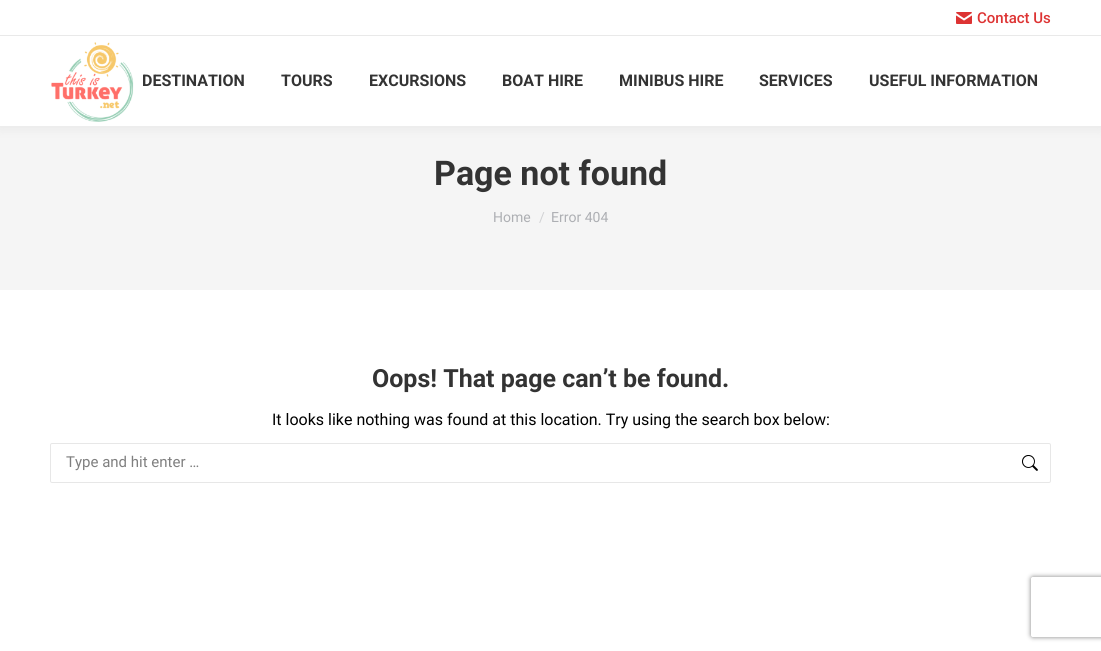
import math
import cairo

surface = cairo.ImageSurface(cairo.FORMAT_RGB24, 1101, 651)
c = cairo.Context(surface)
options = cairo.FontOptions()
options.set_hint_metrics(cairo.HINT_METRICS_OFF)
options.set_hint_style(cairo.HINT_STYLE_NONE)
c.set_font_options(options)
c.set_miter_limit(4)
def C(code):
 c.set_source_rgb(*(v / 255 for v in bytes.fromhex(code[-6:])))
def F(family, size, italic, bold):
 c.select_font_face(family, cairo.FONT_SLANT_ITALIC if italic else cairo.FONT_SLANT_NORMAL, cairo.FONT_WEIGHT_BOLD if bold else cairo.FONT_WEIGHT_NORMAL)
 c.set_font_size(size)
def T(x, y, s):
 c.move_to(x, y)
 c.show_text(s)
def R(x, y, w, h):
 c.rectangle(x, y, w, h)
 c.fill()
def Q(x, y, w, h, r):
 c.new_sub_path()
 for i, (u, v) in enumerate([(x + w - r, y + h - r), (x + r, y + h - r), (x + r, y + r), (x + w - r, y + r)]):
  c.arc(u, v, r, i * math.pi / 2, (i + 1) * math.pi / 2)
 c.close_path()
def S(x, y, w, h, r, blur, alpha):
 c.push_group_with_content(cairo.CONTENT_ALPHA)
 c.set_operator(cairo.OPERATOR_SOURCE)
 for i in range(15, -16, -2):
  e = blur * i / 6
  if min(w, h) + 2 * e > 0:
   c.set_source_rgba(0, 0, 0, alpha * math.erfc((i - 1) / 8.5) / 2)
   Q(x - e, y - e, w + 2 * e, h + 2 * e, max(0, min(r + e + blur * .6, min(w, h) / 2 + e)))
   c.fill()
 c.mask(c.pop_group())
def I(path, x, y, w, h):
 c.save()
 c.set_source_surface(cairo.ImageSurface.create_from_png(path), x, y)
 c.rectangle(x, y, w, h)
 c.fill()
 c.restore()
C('ffffff')
c.paint()
C('f5f5f5')
R(0,126,1101,164)
C('000000')
S(-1,-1,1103,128,0,7.5,.07)
C('ffffff')
R(0,0,1101,126)
I('1.png',956,12,16,12)
F('Roboto Medium',15,0,0)
C('dd3333')
T(977,23,'Contact Us')
C('e9e9e9')
R(0,35,1101,1)
I('2.png',51,42,83,80)
F('Roboto',16,0,1)
C('333333')
T(142,86,'DESTINATION')
T(281,86,'TOURS')
T(369,86,'EXCURSIONS')
T(502,86,'BOAT HIRE')
T(619,86,'MINIBUS HIRE')
T(759,86,'SERVICES')
T(869,86,'USEFUL INFORMATION')
F('Roboto',34,0,1)
T(434,185,'Page not found')
F('Roboto',14,0,0)
C('adafb3')
T(493,222,'Home')
C('d1d2d4')
T(539,222,'/')
C('adafb3')
T(551,222,'Error 404')
F('Roboto',25,0,1)
C('333333')
T(372,387,'Oops! That page can’t be found.')
F('Roboto',16,0,0)
C('000000')
T(272,425,'It looks like nothing was found at this location. Try using the search box below:')
Q(50.5,443.5,1000,39,1.5)
C('e7e7e7')
c.set_line_width(1)
c.stroke()
F('Roboto',15,0,0)
C('7f7f7f')
T(66,467,'Type and hit enter …')
I('3.png',1022,455,16,16)
c.save()
c.set_fill_rule(cairo.FILL_RULE_EVEN_ODD)
c.new_path()
c.move_to(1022,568)
c.line_to(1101,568)
c.line_to(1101,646)
c.line_to(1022,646)
c.close_path()
c.move_to(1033,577)
c.line_to(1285,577)
c.curve_to(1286,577,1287,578,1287,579)
c.line_to(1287,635)
c.curve_to(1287,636,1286,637,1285,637)
c.line_to(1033,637)
c.curve_to(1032,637,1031,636,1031,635)
c.line_to(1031,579)
c.curve_to(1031,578,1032,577,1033,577)
c.close_path()
c.clip()
C('808080')
S(1031,577,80,60,2,2.5,1)
c.restore()
surface.write_to_png('o.png')
